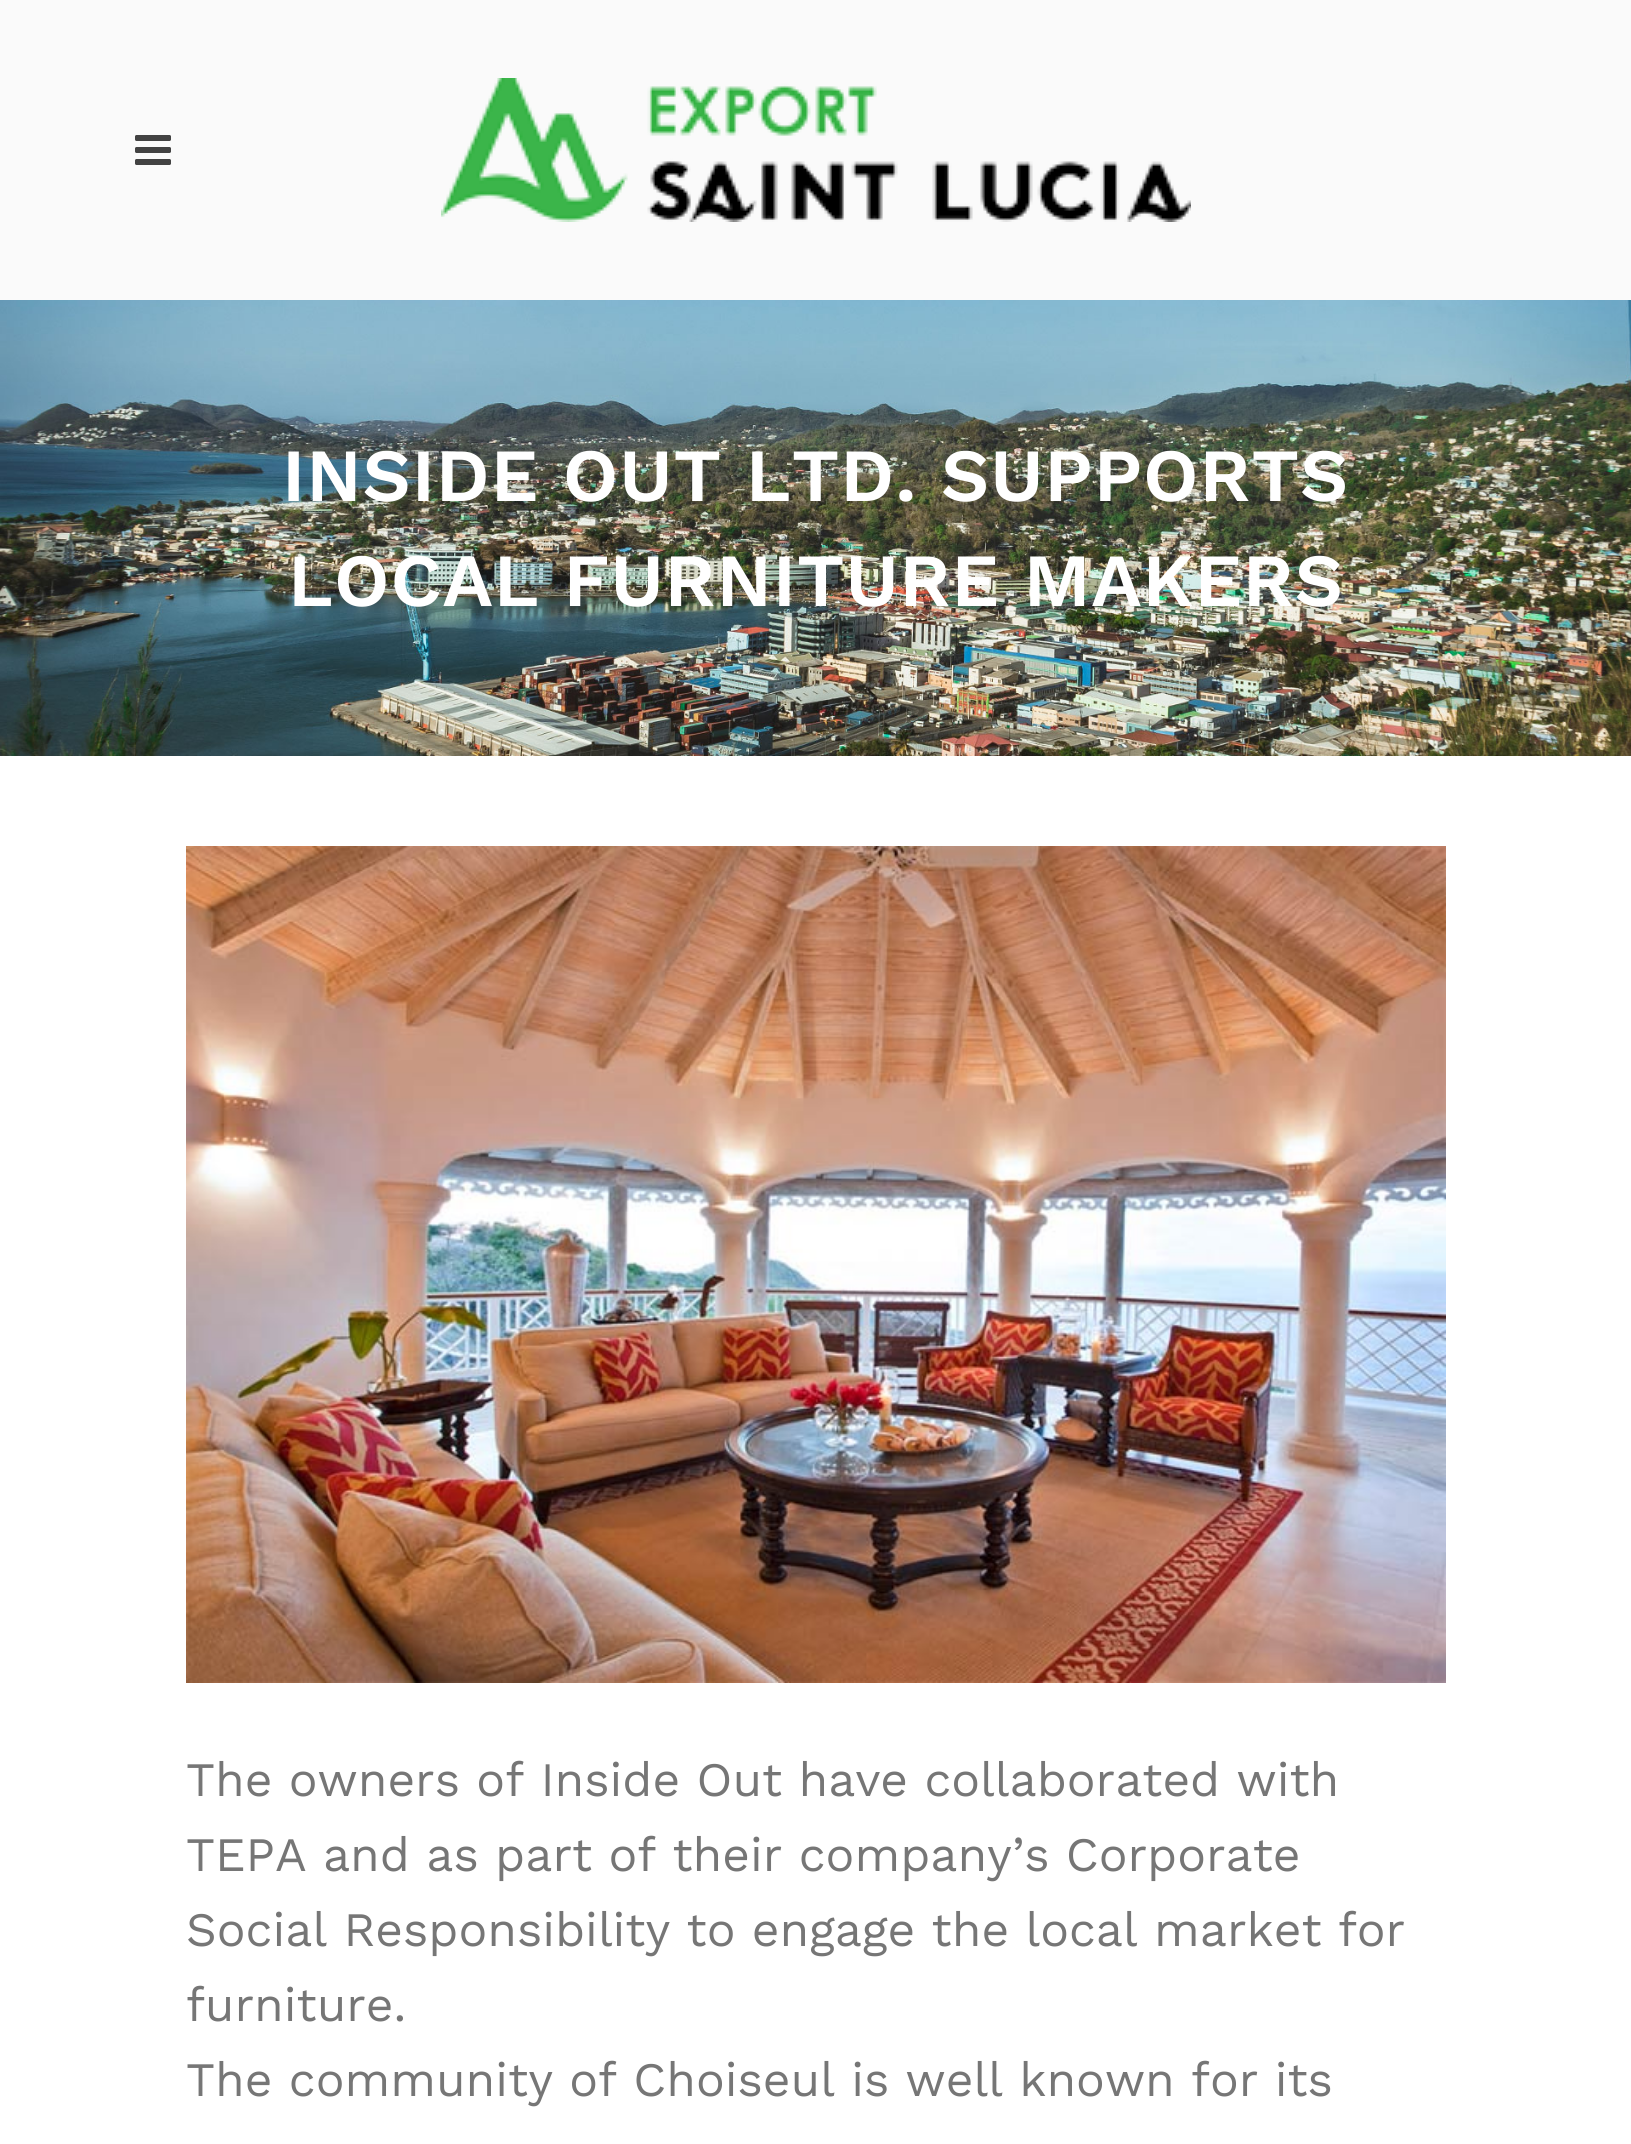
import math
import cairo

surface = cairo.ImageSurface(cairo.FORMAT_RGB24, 1631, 2144)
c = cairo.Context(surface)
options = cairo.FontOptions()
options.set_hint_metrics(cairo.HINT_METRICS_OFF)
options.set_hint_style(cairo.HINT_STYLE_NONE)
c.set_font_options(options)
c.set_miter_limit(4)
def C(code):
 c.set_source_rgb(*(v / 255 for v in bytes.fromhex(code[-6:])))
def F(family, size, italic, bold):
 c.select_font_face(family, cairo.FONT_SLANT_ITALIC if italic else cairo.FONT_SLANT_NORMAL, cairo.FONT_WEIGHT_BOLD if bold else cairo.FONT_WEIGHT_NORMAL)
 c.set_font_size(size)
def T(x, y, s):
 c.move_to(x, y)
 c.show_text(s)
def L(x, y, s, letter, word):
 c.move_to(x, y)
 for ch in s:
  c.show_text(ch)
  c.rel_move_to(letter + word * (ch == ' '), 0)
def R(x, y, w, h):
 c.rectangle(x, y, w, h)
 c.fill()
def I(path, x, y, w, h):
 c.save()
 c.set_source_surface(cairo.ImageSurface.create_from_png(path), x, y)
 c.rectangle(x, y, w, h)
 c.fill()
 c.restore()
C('ffffff')
c.paint()
C('fafafa')
R(0,0,1631,300)
I('1.png',135,135,36,30)
I('2.png',441,78,750,144)
I('3.png',0,300,1631,456)
F('Work Sans SemiBold',75,0,0)
C('ffffff')
L(282,501,'INSIDE OUT LTD. SUPPORTS',.9,0)
L(288,606,'LOCAL FURNITURE MAKERS',.9,0)
I('4.png',186,846,1260,837)
F('Work Sans',48,0,0)
C('767676')
T(186,1796,'The owners of Inside Out have collaborated with')
T(186,1871,'TEPA and as part of their company’s Corporate')
T(186,1946,'Social Responsibility to engage the local market for')
T(186,2021,'furniture.')
T(186,2096,'The community of Choiseul is well known for its')
surface.write_to_png('o.png')
